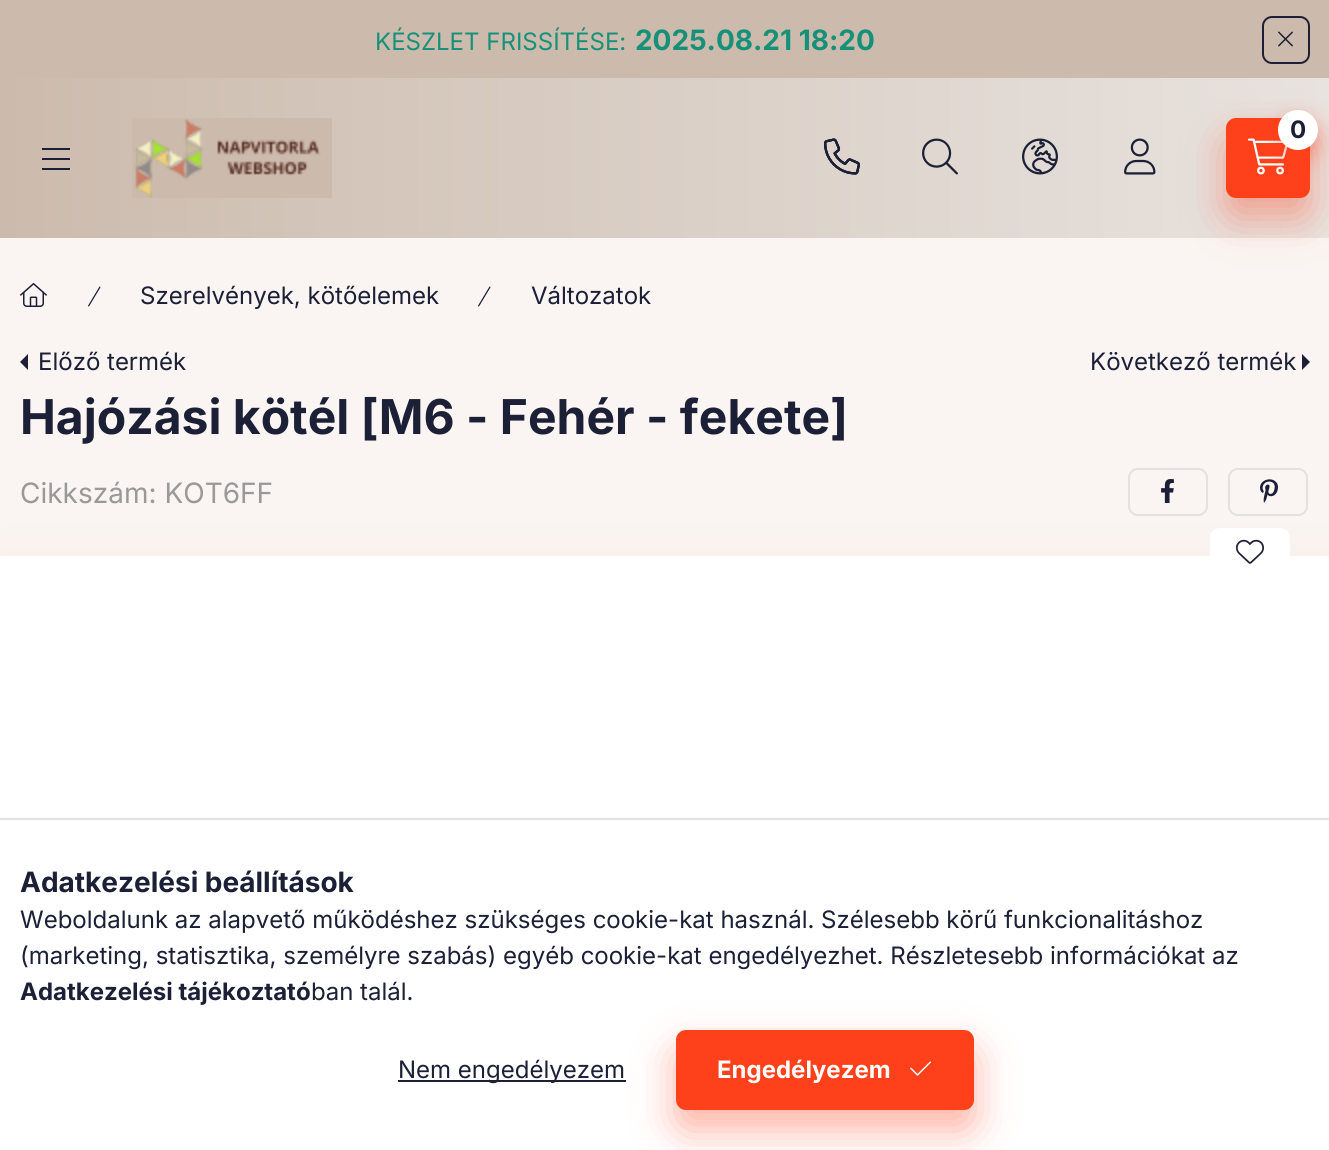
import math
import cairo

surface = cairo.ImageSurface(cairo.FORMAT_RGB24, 1329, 1150)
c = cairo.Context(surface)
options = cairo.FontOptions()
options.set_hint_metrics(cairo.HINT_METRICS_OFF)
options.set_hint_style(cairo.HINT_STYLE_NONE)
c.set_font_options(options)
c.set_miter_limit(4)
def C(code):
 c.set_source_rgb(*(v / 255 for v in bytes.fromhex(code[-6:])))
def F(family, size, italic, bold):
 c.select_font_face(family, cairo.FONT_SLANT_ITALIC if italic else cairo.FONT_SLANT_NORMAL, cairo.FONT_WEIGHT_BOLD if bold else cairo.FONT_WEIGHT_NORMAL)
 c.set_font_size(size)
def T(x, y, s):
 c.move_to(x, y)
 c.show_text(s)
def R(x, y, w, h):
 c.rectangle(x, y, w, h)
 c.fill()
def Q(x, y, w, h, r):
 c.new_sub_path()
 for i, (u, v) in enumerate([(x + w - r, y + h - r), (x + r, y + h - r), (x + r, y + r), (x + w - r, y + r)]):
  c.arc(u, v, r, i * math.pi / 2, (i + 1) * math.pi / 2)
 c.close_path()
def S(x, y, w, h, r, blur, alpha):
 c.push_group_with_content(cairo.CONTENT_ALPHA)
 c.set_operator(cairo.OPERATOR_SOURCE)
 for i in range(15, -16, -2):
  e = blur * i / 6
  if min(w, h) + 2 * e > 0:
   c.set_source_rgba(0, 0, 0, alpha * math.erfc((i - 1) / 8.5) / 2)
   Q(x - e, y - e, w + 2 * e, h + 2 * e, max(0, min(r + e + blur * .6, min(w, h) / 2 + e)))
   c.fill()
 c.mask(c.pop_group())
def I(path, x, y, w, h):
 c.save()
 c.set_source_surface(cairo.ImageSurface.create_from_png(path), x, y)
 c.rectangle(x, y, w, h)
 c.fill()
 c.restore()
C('faf5f2')
c.paint()
gradient = cairo.LinearGradient(0,575,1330,575)
gradient.add_color_stop_rgba(0,0.8,0.733,0.678,1)
gradient.add_color_stop_rgba(1,0.91,0.89,0.875,1)
c.set_source(gradient)
R(0,78,1329,160)
C('ff411b')
S(1226,138,84,80,10,20,.4)
C('ccbbad')
R(0,0,1329,78)
F('Inter',24,0,0)
C('169179')
T(375,50,'KÉSZLET FRISSÍTÉSE:')
F('Inter',28,0,1)
T(635,50,'2025.08.21 18:20')
Q(1263,17,46,46,9)
C('1b2036')
c.stroke()
I('1.png',1278,31,15,16)
R(42,148,28,2)
R(42,158,28,2)
R(42,168,28,2)
I('2.png',132,118,200,80)
I('3.png',824,138,36,37)
I('4.png',824,138,36,37)
I('5.png',824,138,36,37)
C('ff411b')
Q(1226,118,84,80,10)
c.fill()
I('6.png',1248,138,40,37)
C('ff411b')
S(1278,120,40,40,20,10,.4)
C('ffffff')
c.arc(1298,130,20,0,2 * math.pi)
c.fill()
F('Inter',24,0,1)
C('1b2036')
T(1290,138,'0')
I('7.png',922,138,36,37)
I('8.png',1022,138,36,37)
I('9.png',1124,138,32,37)
I('10.png',20,283,27,24)
I('11.png',88,286,13,21)
F('Inter',24,0,0)
T(140,304,'Szerelvények, kötőelemek')
I('11.png',478,286,13,21)
T(531,304,'Változatok')
c.new_path()
c.move_to(28,370)
c.line_to(28,354)
c.line_to(20,362)
c.close_path()
c.fill()
T(38,370,'Előző termék')
T(1090,370,'Következő termék')
c.new_path()
c.move_to(1302,370)
c.line_to(1302,354)
c.line_to(1310,362)
c.close_path()
c.fill()
F('Inter',48,0,1)
T(20,434,'Hajózási kötél [M6 - Fehér - fekete]')
C('ff411b')
S(0,556,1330,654,0,20,.05)
F('Inter',28,0,0)
C('999999')
T(20,503,'Cikkszám: KOT6FF')
Q(1129,469,78,46,9)
C('e1e1e1')
c.stroke()
I('12.png',1161,479,13,24)
Q(1229,469,78,46,9)
c.stroke()
I('13.png',1260,479,18,24)
C('ffffff')
R(0,556,1329,262)
Q(1210,528,80,48,10)
c.fill()
I('14.png',1236,539,28,25)
R(0,820,1329,330)
C('e1e1e1')
R(0,818,1329,2)
F('Inter',28,0,1)
C('1b2036')
T(20,892,'Adatkezelési beállítások')
F('Inter',24,0,0)
T(20,928,'Weboldalunk az alapvető működéshez szükséges cookie-kat használ. Szélesebb körű funkcionalitáshoz')
T(20,964,'(marketing, statisztika, személyre szabás) egyéb cookie-kat engedélyezhet. Részletesebb információkat az')
F('Inter',24,0,1)
T(20,1000,'Adatkezelési tájékoztató')
F('Inter',24,0,0)
T(311,1000,'ban talál.')
R(398,1080,228,2)
T(398,1078,'Nem engedélyezem')
C('ff411b')
S(676,1050,298,80,10,20,.4)
C('ff411b')
Q(677,1031,296,78,9)
c.fill_preserve()
c.stroke()
F('Inter',24,0,1)
C('ffffff')
T(717,1078,'Engedélyezem')
I('15.png',910,1061,21,15)
surface.write_to_png('o.png')
